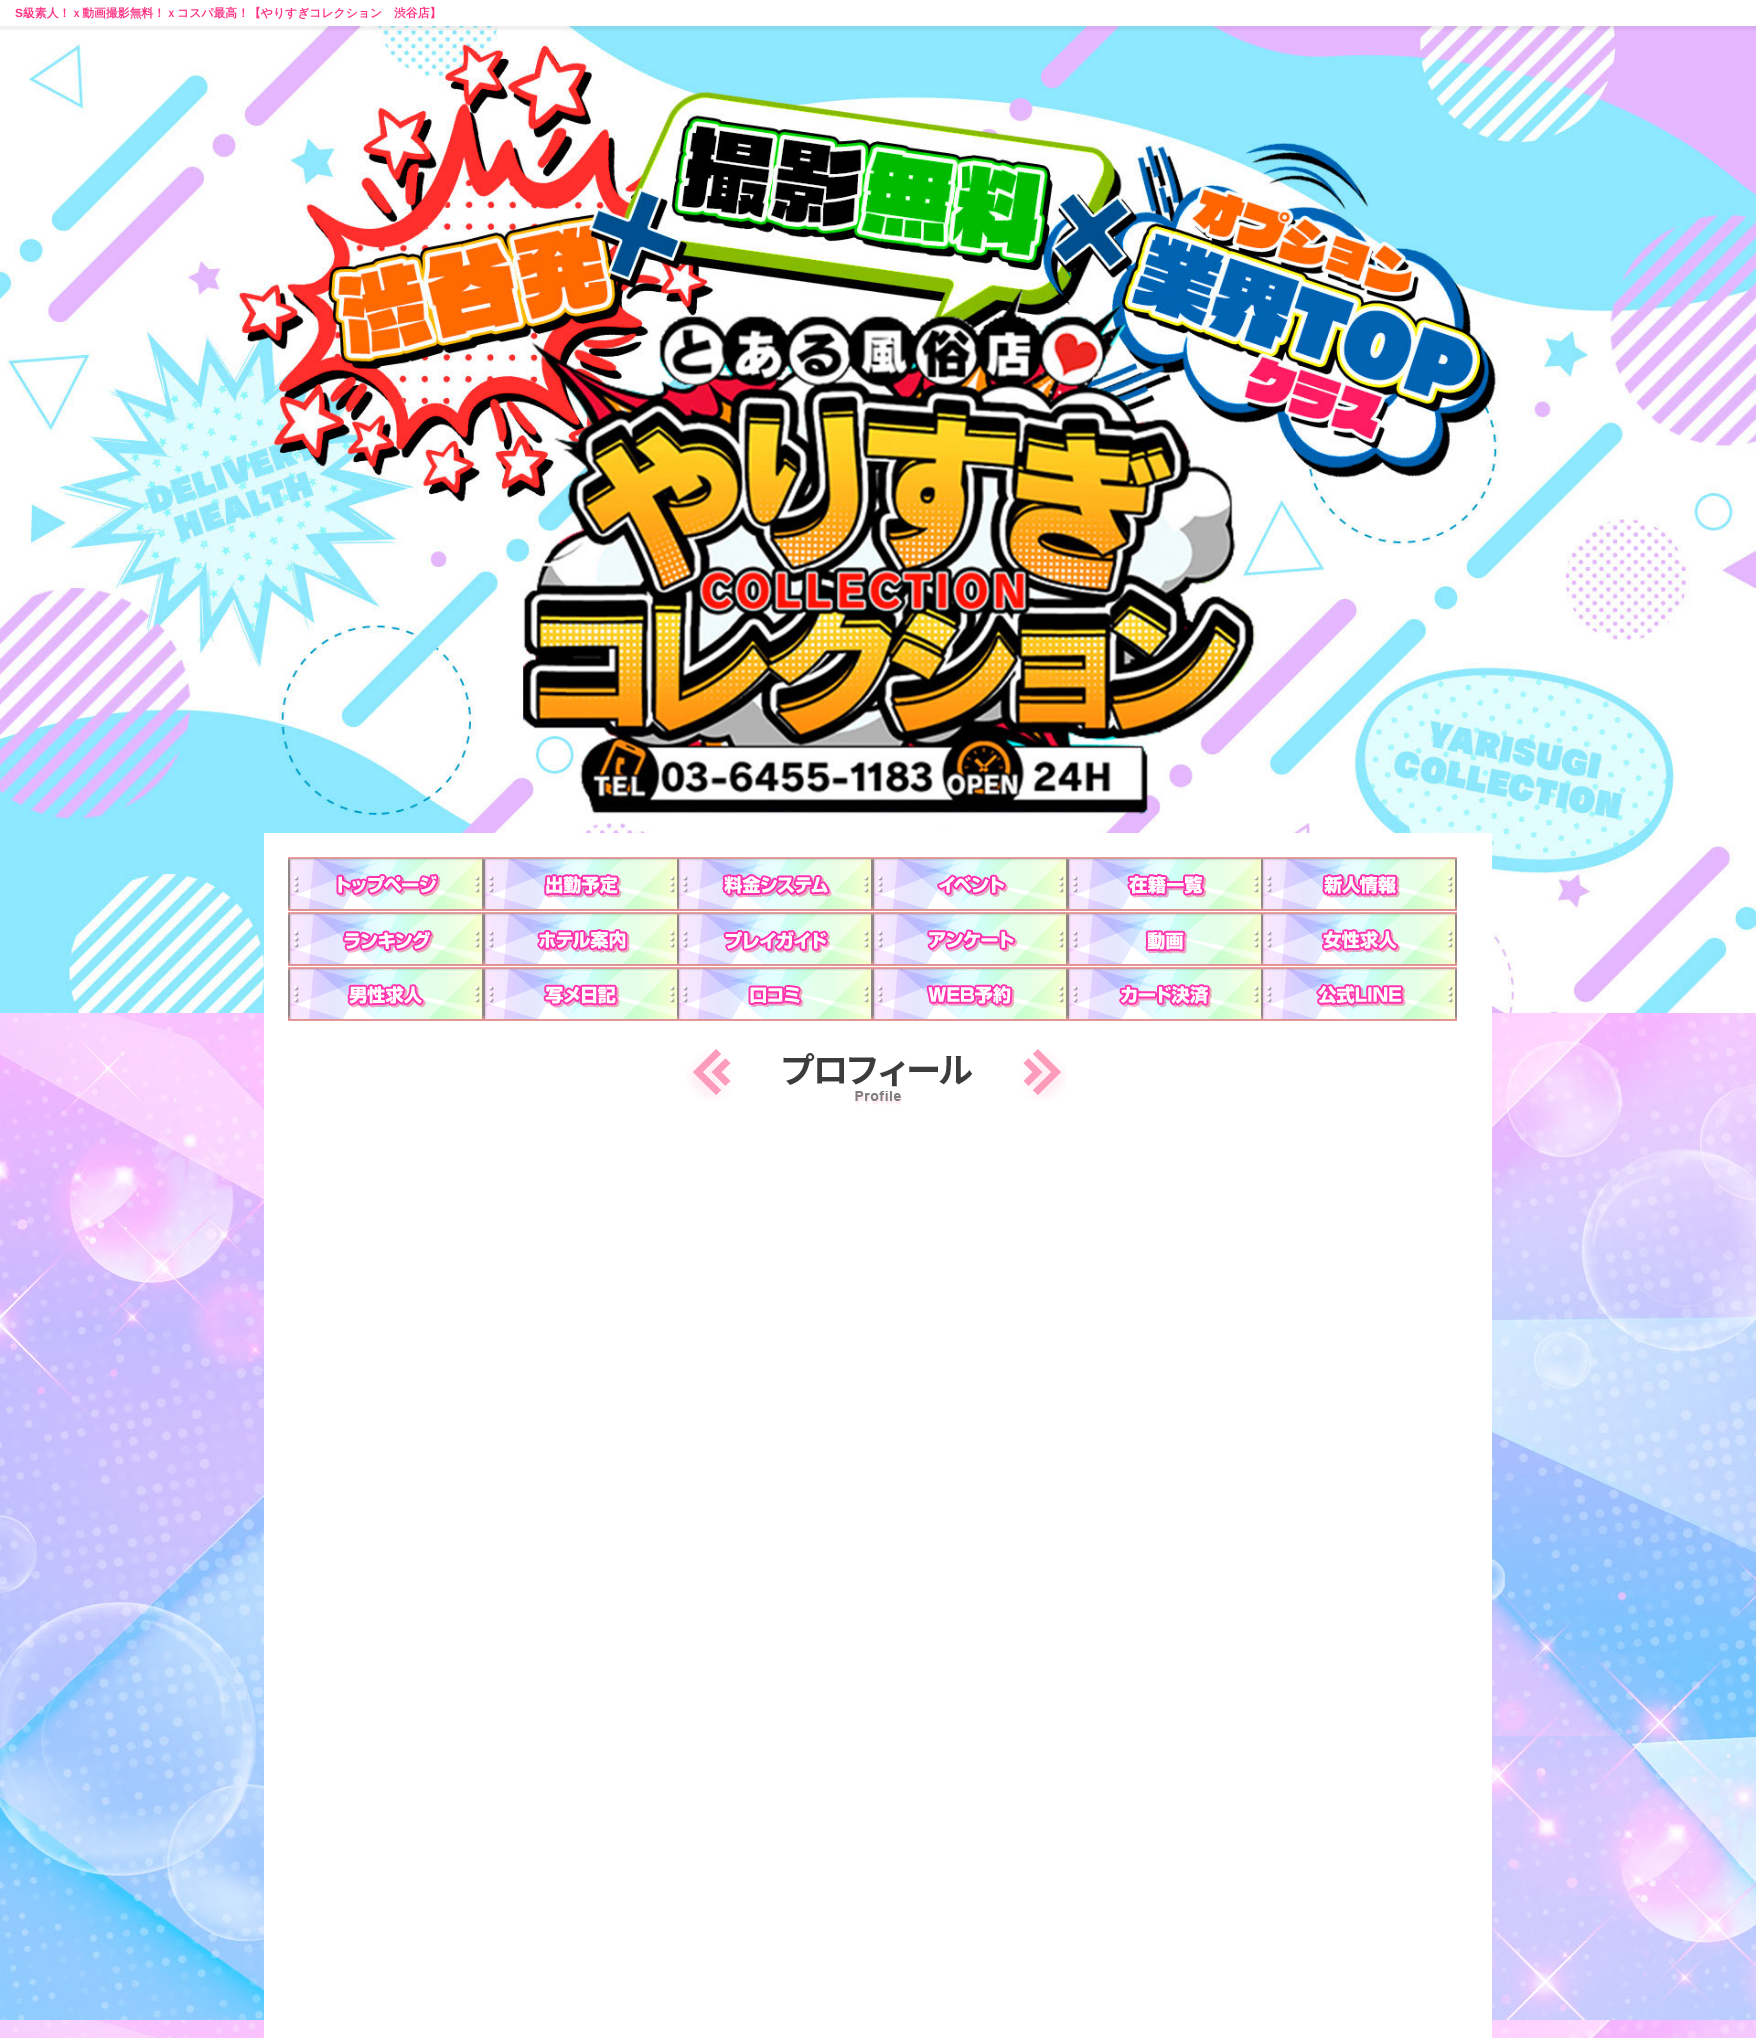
import math
import cairo

surface = cairo.ImageSurface(cairo.FORMAT_RGB24, 1756, 2038)
c = cairo.Context(surface)
options = cairo.FontOptions()
options.set_hint_metrics(cairo.HINT_METRICS_OFF)
options.set_hint_style(cairo.HINT_STYLE_NONE)
c.set_font_options(options)
c.set_miter_limit(4)
def C(code):
 c.set_source_rgb(*(v / 255 for v in bytes.fromhex(code[-6:])))
def F(family, size, italic, bold):
 c.select_font_face(family, cairo.FONT_SLANT_ITALIC if italic else cairo.FONT_SLANT_NORMAL, cairo.FONT_WEIGHT_BOLD if bold else cairo.FONT_WEIGHT_NORMAL)
 c.set_font_size(size)
def T(x, y, s):
 c.move_to(x, y)
 c.show_text(s)
def R(x, y, w, h):
 c.rectangle(x, y, w, h)
 c.fill()
def Q(x, y, w, h, r):
 c.new_sub_path()
 for i, (u, v) in enumerate([(x + w - r, y + h - r), (x + r, y + h - r), (x + r, y + r), (x + w - r, y + r)]):
  c.arc(u, v, r, i * math.pi / 2, (i + 1) * math.pi / 2)
 c.close_path()
def S(x, y, w, h, r, blur, alpha):
 c.push_group_with_content(cairo.CONTENT_ALPHA)
 c.set_operator(cairo.OPERATOR_SOURCE)
 for i in range(15, -16, -2):
  e = blur * i / 6
  if min(w, h) + 2 * e > 0:
   c.set_source_rgba(0, 0, 0, alpha * math.erfc((i - 1) / 8.5) / 2)
   Q(x - e, y - e, w + 2 * e, h + 2 * e, max(0, min(r + e + blur * .6, min(w, h) / 2 + e)))
   c.fill()
 c.mask(c.pop_group())
def I(path, x, y, w, h):
 c.save()
 c.set_source_surface(cairo.ImageSurface.create_from_png(path), x, y)
 c.rectangle(x, y, w, h)
 c.fill()
 c.restore()
C('ffffff')
c.paint()
I('1.png',0,1013,1756,1025)
I('2.png',0,26,1756,987)
C('000000')
S(0,0,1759,30,0,1,.06)
C('ffffff')
R(0,0,1756,26)
F('Liberation Sans',11.85,0,1)
C('ff3284')
T(15,17,'S')
F('WenQuanYi Zen Hei',11.85,0,1)
T(23,17,'級素人！ｘ動画撮影無料！ｘコスパ最高！【やりすぎコレクション　渋谷店】')
C('ffffff')
R(264,833,1228,1205)
I('3.png',288,857,196,54)
I('4.png',484,857,195,54)
I('5.png',679,857,194,54)
I('6.png',873,857,195,54)
I('7.png',1068,857,195,54)
I('8.png',1263,857,194,54)
I('9.png',288,912,196,54)
I('10.png',484,912,195,54)
I('11.png',679,912,194,54)
I('12.png',873,912,194,54)
I('13.png',1067,912,196,54)
I('14.png',1263,912,194,54)
I('15.png',288,967,196,54)
I('16.png',484,967,195,54)
I('17.png',679,967,194,54)
I('18.png',873,967,195,54)
I('19.png',1068,967,195,54)
I('20.png',1263,967,194,54)
I('21.png',687,1049,380,56)
surface.write_to_png('o.png')
